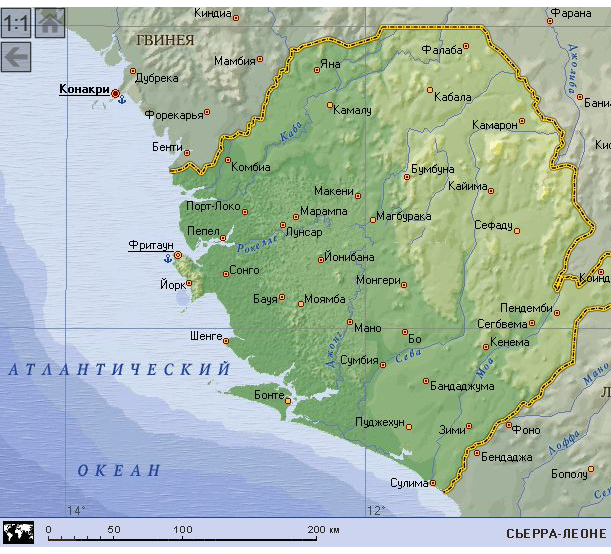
import math
import cairo

surface = cairo.ImageSurface(cairo.FORMAT_RGB24, 611, 554)
c = cairo.Context(surface)
options = cairo.FontOptions()
options.set_hint_metrics(cairo.HINT_METRICS_OFF)
options.set_hint_style(cairo.HINT_STYLE_NONE)
c.set_font_options(options)
c.set_miter_limit(4)
def C(code):
 c.set_source_rgb(*(v / 255 for v in bytes.fromhex(code[-6:])))
def I(path, x, y, w, h):
 c.save()
 c.set_source_surface(cairo.ImageSurface.create_from_png(path), x, y)
 c.rectangle(x, y, w, h)
 c.fill()
 c.restore()
C('ffffff')
c.paint()
I('1.png',0,7,611,540)
I('2.png',0,7,32,32)
I('3.png',34,7,32,32)
I('4.png',0,41,32,32)
surface.write_to_png('o.png')
